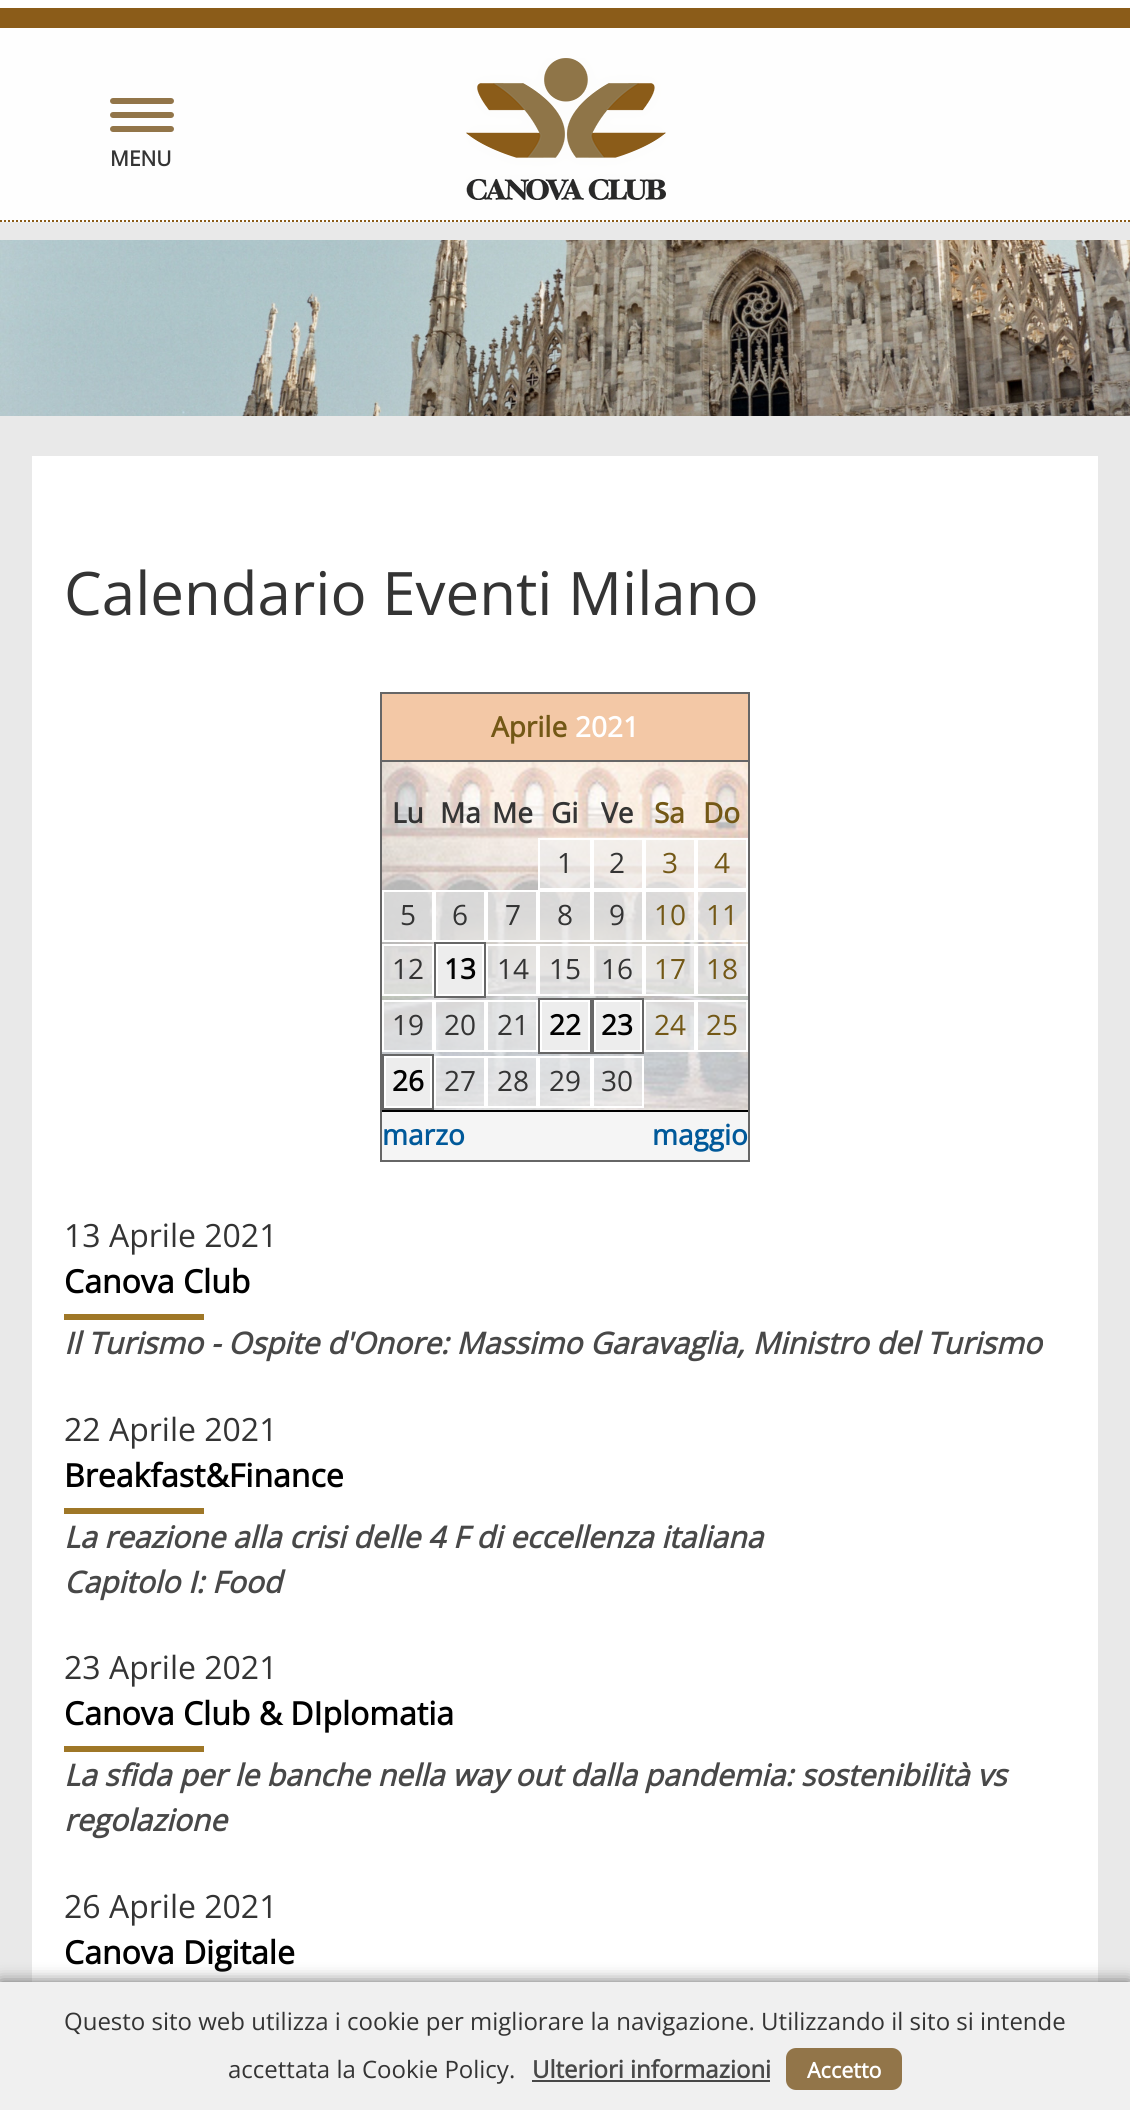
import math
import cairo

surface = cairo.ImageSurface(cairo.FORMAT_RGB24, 1130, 2110)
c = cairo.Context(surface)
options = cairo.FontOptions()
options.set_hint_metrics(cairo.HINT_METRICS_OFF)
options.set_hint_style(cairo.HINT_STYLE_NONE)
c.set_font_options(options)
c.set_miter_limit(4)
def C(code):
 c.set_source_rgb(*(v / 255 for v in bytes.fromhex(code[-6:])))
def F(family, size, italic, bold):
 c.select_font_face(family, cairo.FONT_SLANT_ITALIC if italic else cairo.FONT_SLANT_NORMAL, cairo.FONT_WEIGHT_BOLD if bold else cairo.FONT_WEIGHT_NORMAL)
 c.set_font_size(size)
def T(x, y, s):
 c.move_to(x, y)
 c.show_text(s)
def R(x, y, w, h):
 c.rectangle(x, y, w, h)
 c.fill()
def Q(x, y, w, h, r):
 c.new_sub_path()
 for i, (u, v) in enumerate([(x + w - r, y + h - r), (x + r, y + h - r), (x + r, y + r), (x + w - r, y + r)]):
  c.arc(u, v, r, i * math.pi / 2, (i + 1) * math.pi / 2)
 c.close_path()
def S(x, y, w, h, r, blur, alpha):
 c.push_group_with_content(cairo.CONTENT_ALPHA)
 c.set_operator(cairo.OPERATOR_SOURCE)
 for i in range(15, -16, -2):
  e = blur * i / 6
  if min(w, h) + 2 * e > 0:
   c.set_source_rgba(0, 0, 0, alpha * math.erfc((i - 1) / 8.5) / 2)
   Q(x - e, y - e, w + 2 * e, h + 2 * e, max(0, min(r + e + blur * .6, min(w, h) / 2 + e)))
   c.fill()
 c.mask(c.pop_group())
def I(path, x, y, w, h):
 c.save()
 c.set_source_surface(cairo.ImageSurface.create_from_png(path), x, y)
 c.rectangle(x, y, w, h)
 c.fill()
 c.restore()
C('e9e9e9')
c.paint()
C('ffffff')
R(0,0,1130,8)
C('8b5c19')
R(0,8,1130,20)
C('fefefe')
R(0,28,1130,194)
c.new_path()
c.move_to(0,221)
c.line_to(1130,221)
C('8b5c19')
c.set_dash([2,2])
c.stroke()
C('927549')
Q(110,98,64,6,3)
c.fill()
Q(110,112,64,6,3)
c.fill()
Q(110,126,64,6,3)
c.fill()
F('Open Sans',21,0,1)
C('343434')
T(110,166,'MENU')
I('1.png',466,58,200,142)
I('2.png',0,240,1130,176)
C('ffffff')
R(32,456,1066,1526)
F('Open Sans',60,0,0)
C('343434')
T(64,615,'Calendario Eventi Milano')
I('3.png',382,762,366,348)
c.rectangle(381,693,368,468)
C('666666')
c.set_dash([])
c.stroke()
C('f3c8a6')
R(382,694,366,66)
C('666666')
R(382,760,366,2)
F('Open Sans',28,0,1)
C('735816')
T(491,737,'Aprile')
C('ffffff')
T(575,737,'2021')
C('343434')
T(392,823,'Lu')
T(440,823,'Ma')
T(492,823,'Me')
T(551,823,'Gi')
T(601,823,'Ve')
C('735816')
T(654,823,'Sa')
T(703,823,'Do')
c.set_source_rgba(0.929,0.929,0.929,0.6)
c.rectangle(539,839,52,50)
c.fill_preserve()
C('ffffff')
c.stroke()
F('Open Sans',28,0,0)
C('343434')
T(557,873,'1')
c.set_source_rgba(0.929,0.929,0.929,0.6)
c.rectangle(593,839,50,50)
c.fill_preserve()
C('ffffff')
c.stroke()
C('343434')
T(609,873,'2')
c.set_source_rgba(0.929,0.929,0.929,0.6)
c.rectangle(645,839,50,50)
c.fill_preserve()
C('ffffff')
c.stroke()
C('735816')
T(662,873,'3')
c.set_source_rgba(0.929,0.929,0.929,0.6)
c.rectangle(697,839,50,50)
c.fill_preserve()
C('ffffff')
c.stroke()
C('735816')
T(714,873,'4')
c.set_source_rgba(0.929,0.929,0.929,0.6)
c.rectangle(383,891,50,50)
c.fill_preserve()
C('ffffff')
c.stroke()
C('343434')
T(400,925,'5')
c.set_source_rgba(0.929,0.929,0.929,0.6)
c.rectangle(435,891,50,50)
c.fill_preserve()
C('ffffff')
c.stroke()
C('343434')
T(452,925,'6')
c.set_source_rgba(0.929,0.929,0.929,0.6)
c.rectangle(487,891,50,50)
c.fill_preserve()
C('ffffff')
c.stroke()
C('343434')
T(505,925,'7')
c.set_source_rgba(0.929,0.929,0.929,0.6)
c.rectangle(539,891,52,50)
c.fill_preserve()
C('ffffff')
c.stroke()
C('343434')
T(557,925,'8')
c.set_source_rgba(0.929,0.929,0.929,0.6)
c.rectangle(593,891,50,50)
c.fill_preserve()
C('ffffff')
c.stroke()
C('343434')
T(609,925,'9')
c.set_source_rgba(0.929,0.929,0.929,0.6)
c.rectangle(645,891,50,50)
c.fill_preserve()
C('ffffff')
c.stroke()
C('735816')
T(654,925,'10')
c.set_source_rgba(0.929,0.929,0.929,0.6)
c.rectangle(697,891,50,50)
c.fill_preserve()
C('ffffff')
c.stroke()
C('735816')
T(706,925,'11')
c.set_source_rgba(0.929,0.929,0.929,0.6)
c.rectangle(383,945,50,50)
c.fill_preserve()
C('ffffff')
c.stroke()
C('343434')
T(392,979,'12')
C('ededed')
R(438,946,44,48)
c.rectangle(435,943,50,54)
C('666666')
c.stroke()
c.rectangle(437,945,46,50)
C('ffffff')
c.stroke()
F('Open Sans',28,0,1)
C('000000')
T(444,979,'13')
c.set_source_rgba(0.929,0.929,0.929,0.6)
c.rectangle(487,945,50,50)
c.fill_preserve()
C('ffffff')
c.stroke()
F('Open Sans',28,0,0)
C('343434')
T(497,979,'14')
c.set_source_rgba(0.929,0.929,0.929,0.6)
c.rectangle(539,945,52,50)
c.fill_preserve()
C('ffffff')
c.stroke()
C('343434')
T(549,979,'15')
c.set_source_rgba(0.929,0.929,0.929,0.6)
c.rectangle(593,945,50,50)
c.fill_preserve()
C('ffffff')
c.stroke()
C('343434')
T(601,979,'16')
c.set_source_rgba(0.929,0.929,0.929,0.6)
c.rectangle(645,945,50,50)
c.fill_preserve()
C('ffffff')
c.stroke()
C('735816')
T(654,979,'17')
c.set_source_rgba(0.929,0.929,0.929,0.6)
c.rectangle(697,945,50,50)
c.fill_preserve()
C('ffffff')
c.stroke()
C('735816')
T(706,979,'18')
c.set_source_rgba(0.929,0.929,0.929,0.6)
c.rectangle(383,1001,50,50)
c.fill_preserve()
C('ffffff')
c.stroke()
C('343434')
T(392,1035,'19')
c.set_source_rgba(0.929,0.929,0.929,0.6)
c.rectangle(435,1001,50,50)
c.fill_preserve()
C('ffffff')
c.stroke()
C('343434')
T(444,1035,'20')
c.set_source_rgba(0.929,0.929,0.929,0.6)
c.rectangle(487,1001,50,50)
c.fill_preserve()
C('ffffff')
c.stroke()
C('343434')
T(497,1035,'21')
C('ededed')
R(542,1002,46,48)
c.rectangle(539,999,52,54)
C('666666')
c.stroke()
c.rectangle(541,1001,48,50)
C('ffffff')
c.stroke()
F('Open Sans',28,0,1)
C('000000')
T(549,1035,'22')
C('ededed')
R(596,1002,44,48)
c.rectangle(593,999,50,54)
C('666666')
c.stroke()
c.rectangle(595,1001,46,50)
C('ffffff')
c.stroke()
C('000000')
T(601,1035,'23')
c.set_source_rgba(0.929,0.929,0.929,0.6)
c.rectangle(645,1001,50,50)
c.fill_preserve()
C('ffffff')
c.stroke()
F('Open Sans',28,0,0)
C('735816')
T(654,1035,'24')
c.set_source_rgba(0.929,0.929,0.929,0.6)
c.rectangle(697,1001,50,50)
c.fill_preserve()
C('ffffff')
c.stroke()
C('735816')
T(706,1035,'25')
C('ededed')
R(386,1058,44,48)
c.rectangle(383,1055,50,54)
C('666666')
c.stroke()
c.rectangle(385,1057,46,50)
C('ffffff')
c.stroke()
F('Open Sans',28,0,1)
C('000000')
T(392,1091,'26')
c.set_source_rgba(0.929,0.929,0.929,0.6)
c.rectangle(435,1057,50,50)
c.fill_preserve()
C('ffffff')
c.stroke()
F('Open Sans',28,0,0)
C('343434')
T(444,1091,'27')
c.set_source_rgba(0.929,0.929,0.929,0.6)
c.rectangle(487,1057,50,50)
c.fill_preserve()
C('ffffff')
c.stroke()
C('343434')
T(497,1091,'28')
c.set_source_rgba(0.929,0.929,0.929,0.6)
c.rectangle(539,1057,52,50)
c.fill_preserve()
C('ffffff')
c.stroke()
C('343434')
T(549,1091,'29')
c.set_source_rgba(0.929,0.929,0.929,0.6)
c.rectangle(593,1057,50,50)
c.fill_preserve()
C('ffffff')
c.stroke()
C('343434')
T(601,1091,'30')
C('f5f5f5')
R(382,1112,366,48)
C('000000')
R(382,1110,366,2)
F('Open Sans',28,0,1)
C('00599a')
T(382,1145,'marzo')
T(652,1145,'maggio')
F('Open Sans',32,0,0)
C('343434')
T(64,1247,'13 Aprile 2021')
F('Open Sans',32,0,1)
C('000000')
T(64,1293,'Canova Club')
C('9f7727')
R(64,1314,140,6)
F('Open Sans',30,1,1)
C('484848')
T(64,1354,'Il Turismo - Ospite d\'Onore: Massimo Garavaglia, Ministro del Turismo')
F('Open Sans',32,0,0)
C('343434')
T(64,1441,'22 Aprile 2021')
F('Open Sans',32,0,1)
C('000000')
T(64,1487,'Breakfast&Finance')
C('9f7727')
R(64,1508,140,6)
F('Open Sans',30,1,1)
C('484848')
T(64,1548,'La reazione alla crisi delle 4 F di eccellenza italiana')
T(64,1593,'Capitolo I: Food')
F('Open Sans',32,0,0)
C('343434')
T(64,1679,'23 Aprile 2021')
F('Open Sans',32,0,1)
C('000000')
T(64,1725,'Canova Club & DIplomatia')
C('9f7727')
R(64,1746,140,6)
F('Open Sans',30,1,1)
C('484848')
T(64,1786,'La sfida per le banche nella way out dalla pandemia: sostenibilità vs')
T(64,1831,'regolazione')
F('Open Sans',32,0,0)
C('343434')
T(64,1918,'26 Aprile 2021')
F('Open Sans',32,0,1)
C('000000')
T(64,1964,'Canova Digitale')
C('666666')
S(0,1982,1130,128,0,8,1)
C('f0f0f0')
R(0,1982,1130,128)
F('Open Sans',24,0,0)
C('343434')
T(64,2030,'Questo sito web utilizza i cookie per migliorare la navigazione. Utilizzando il sito si intende')
T(228,2078,'accettata la Cookie Policy.')
F('Open Sans',24,0,1)
C('484848')
T(532,2078,'Ulteriori informazioni')
C('474747')
R(532,2080,238,2)
C('927549')
Q(786,2048,116,42,10)
c.fill()
F('Open Sans',21.5,0,1)
C('ffffff')
T(807,2078,'Accetto')
surface.write_to_png('o.png')
